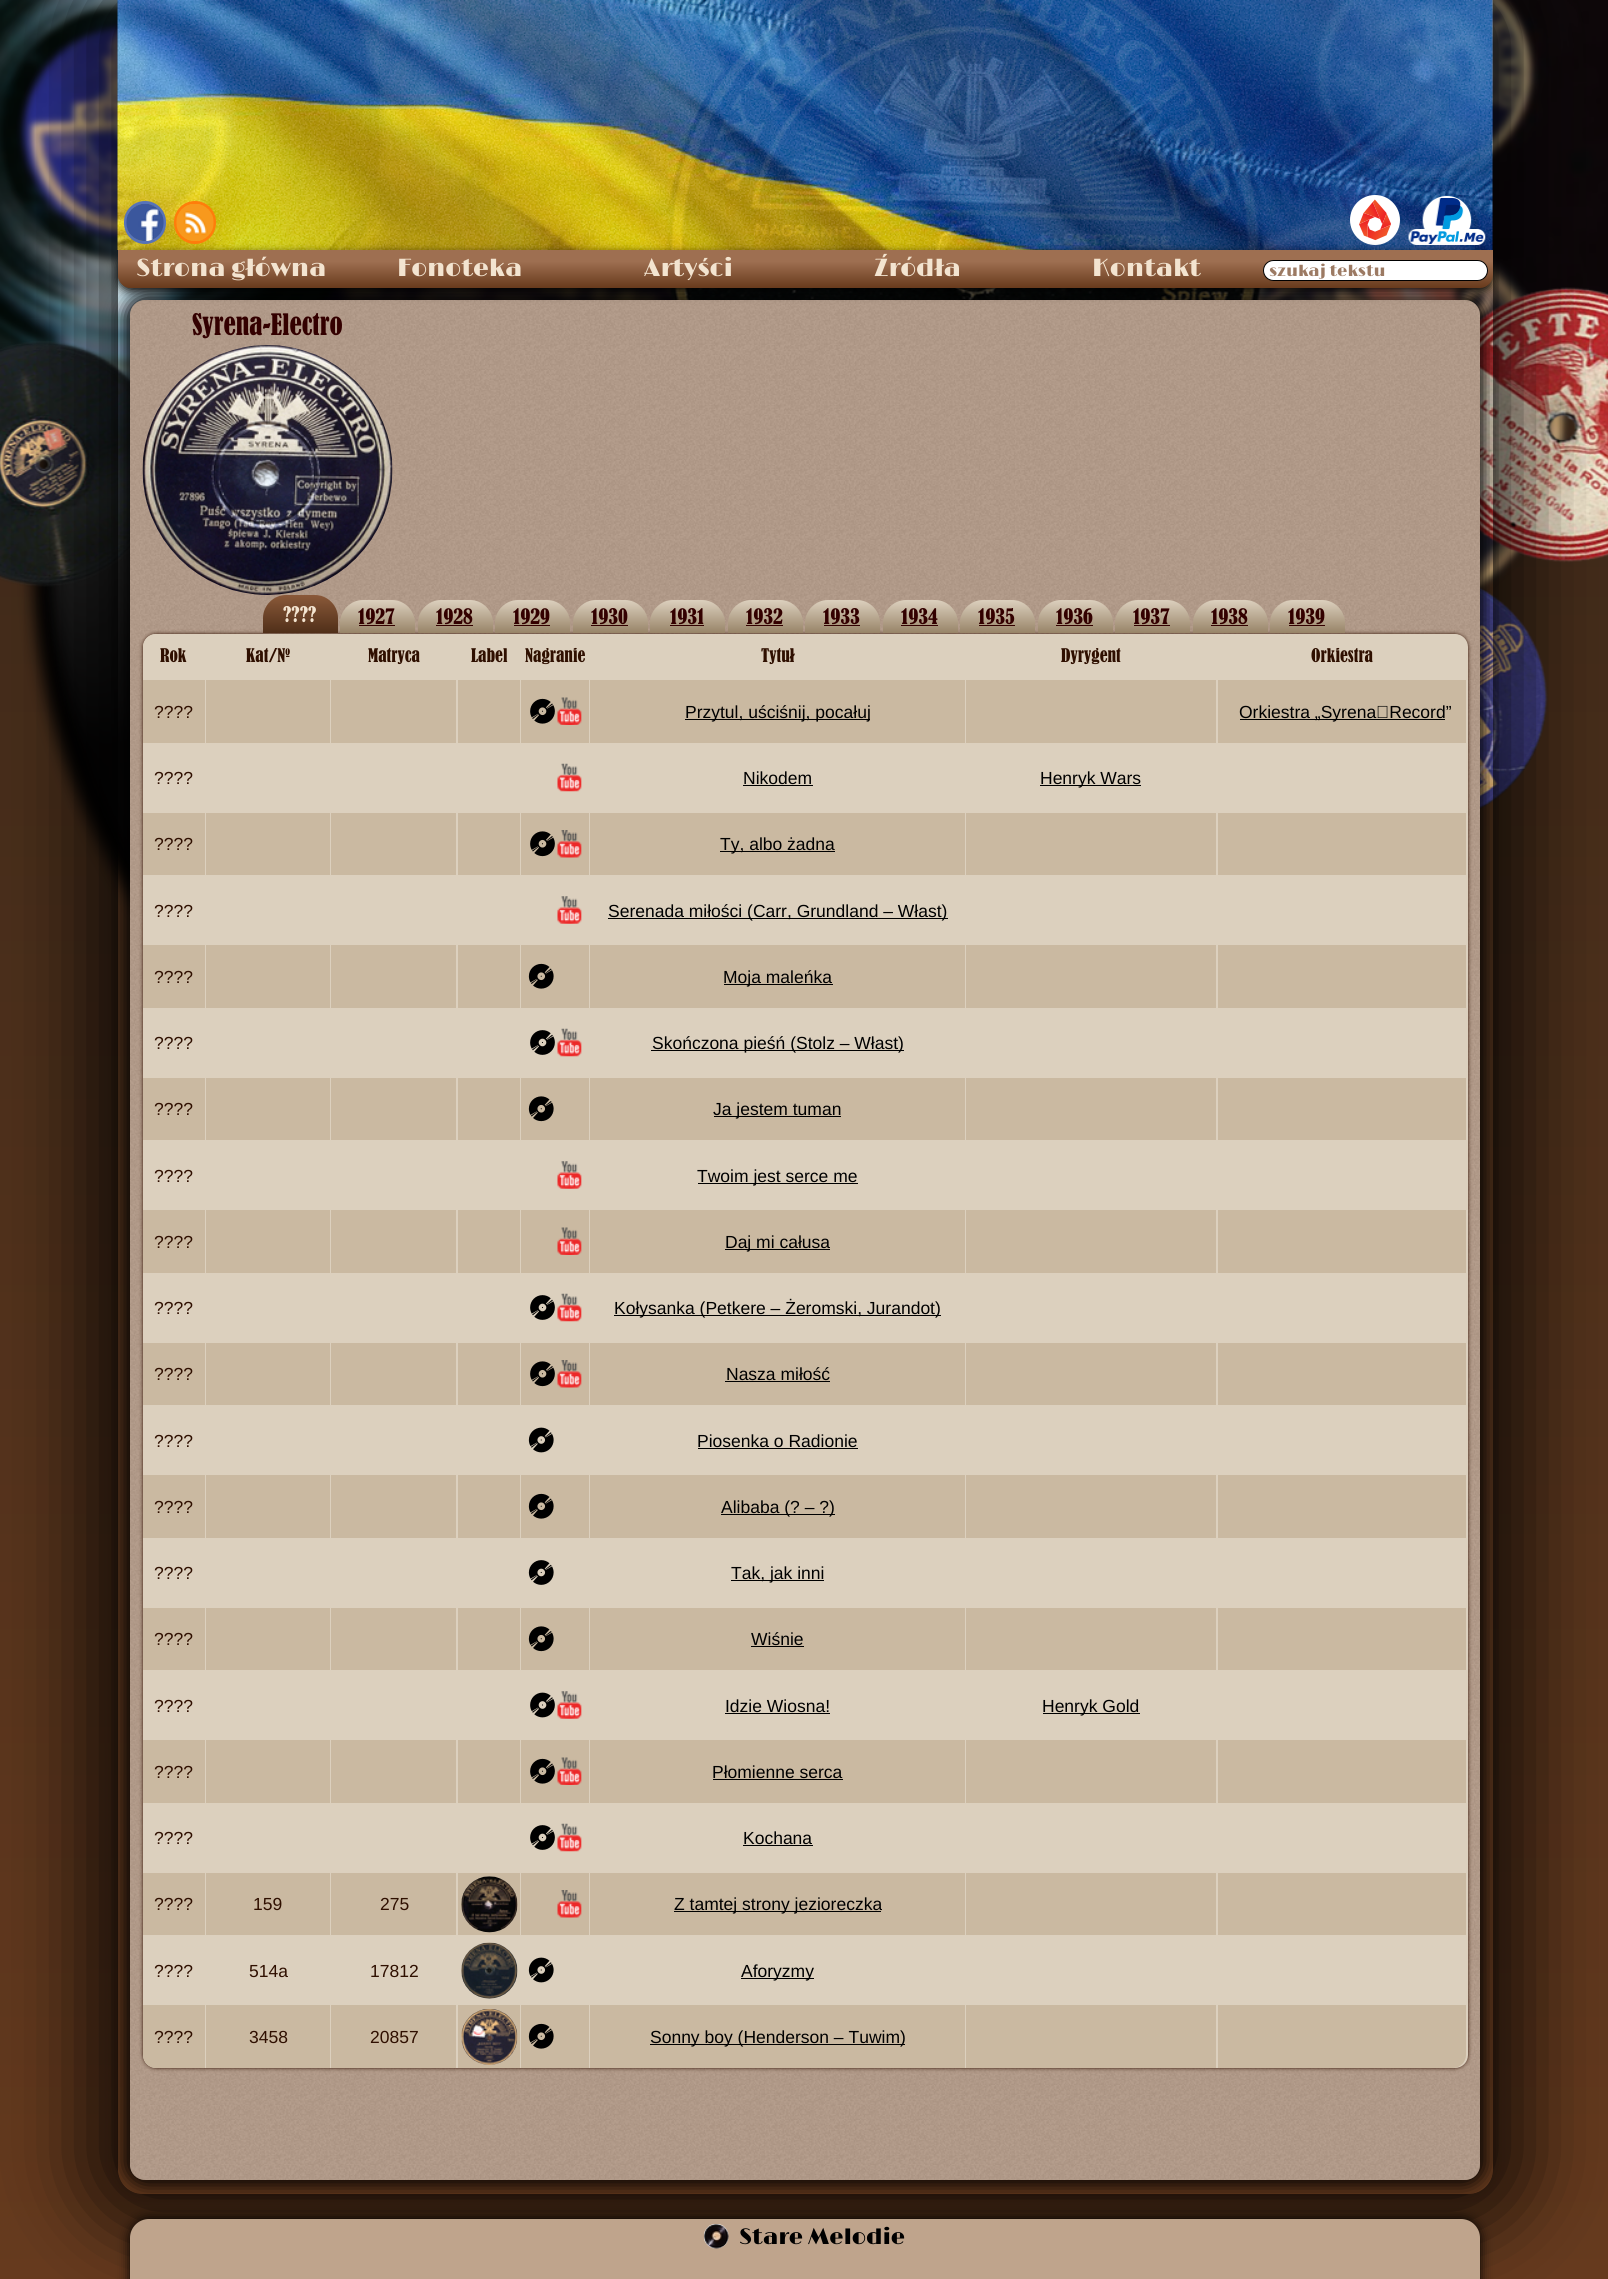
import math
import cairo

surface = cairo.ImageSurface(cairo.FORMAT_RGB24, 1608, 2279)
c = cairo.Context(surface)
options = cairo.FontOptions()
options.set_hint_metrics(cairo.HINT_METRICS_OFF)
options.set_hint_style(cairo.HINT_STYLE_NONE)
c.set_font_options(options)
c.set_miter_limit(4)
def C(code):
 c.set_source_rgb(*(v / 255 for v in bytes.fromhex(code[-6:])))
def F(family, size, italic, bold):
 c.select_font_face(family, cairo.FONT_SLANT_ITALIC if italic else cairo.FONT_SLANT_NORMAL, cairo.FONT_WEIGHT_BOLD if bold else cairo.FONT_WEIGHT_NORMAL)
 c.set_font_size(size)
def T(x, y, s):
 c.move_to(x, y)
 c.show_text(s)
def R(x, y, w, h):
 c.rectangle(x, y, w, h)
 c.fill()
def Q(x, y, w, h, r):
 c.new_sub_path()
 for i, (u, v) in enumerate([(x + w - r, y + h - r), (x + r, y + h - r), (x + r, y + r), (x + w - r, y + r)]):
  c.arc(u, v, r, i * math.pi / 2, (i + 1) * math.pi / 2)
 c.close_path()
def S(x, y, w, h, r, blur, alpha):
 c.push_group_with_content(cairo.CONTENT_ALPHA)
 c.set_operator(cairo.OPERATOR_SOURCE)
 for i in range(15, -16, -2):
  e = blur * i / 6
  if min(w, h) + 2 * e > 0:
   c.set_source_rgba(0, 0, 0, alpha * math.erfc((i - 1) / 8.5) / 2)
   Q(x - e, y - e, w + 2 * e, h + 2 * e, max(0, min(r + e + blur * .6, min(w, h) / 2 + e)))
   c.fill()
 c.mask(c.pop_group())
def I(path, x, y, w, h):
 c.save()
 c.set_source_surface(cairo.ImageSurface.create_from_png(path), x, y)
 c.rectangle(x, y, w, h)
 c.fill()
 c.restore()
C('ffffff')
c.paint()
gradient = cairo.LinearGradient(804,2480,804,200)
gradient.add_color_stop_rgba(0,0.416,0.235,0.118,1)
gradient.add_color_stop_rgba(1,0.231,0.157,0.098,1)
c.set_source(gradient)
R(0,343,1608,1936)
I('1.png',0,0,1608,921)
I('2.png',0,0,1608,809)
c.save()
c.set_fill_rule(cairo.FILL_RULE_EVEN_ODD)
c.new_path()
c.move_to(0,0)
c.line_to(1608,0)
c.line_to(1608,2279)
c.line_to(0,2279)
c.close_path()
c.move_to(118,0)
c.line_to(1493,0)
c.line_to(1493,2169)
c.curve_to(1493,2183,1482,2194,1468,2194)
c.line_to(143,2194)
c.curve_to(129,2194,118,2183,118,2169)
c.close_path()
c.clip()
C('000000')
S(80,-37,1450,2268,63,37.5,.7)
c.restore()
I('3.png',117,0,1376,250)
Q(125.5,202.5,39,40,19.5)
C('5773b9')
c.set_line_width(3)
c.stroke()
I('4.png',126,204,38,37)
Q(175.5,202.5,39,40,19.5)
C('ff7d0b')
c.stroke()
I('5.png',176,204,38,37)
C('ffffff')
c.arc(1375,220,25,0,2 * math.pi)
c.fill()
I('6.png',1359,199,32,42)
I('7.png',1408,196,78,49)
C('000000')
S(125,295,1360,1890,20,9.5,1)
C('c0a28b')
Q(130,300,1350,1880,15)
c.fill()
I('8.png',130,300,1350,1880)
C('000000')
S(118,254,1375,37,13,5,1)
gradient = cairo.LinearGradient(805,250,805,288)
gradient.add_color_stop_rgba(.3,0.62,0.435,0.318,1)
gradient.add_color_stop_rgba(1,0.408,0.227,0.11,1)
c.set_source(gradient)
c.new_path()
c.move_to(118,250)
c.line_to(1493,250)
c.line_to(1493,275)
c.curve_to(1493,282,1487,288,1480,288)
c.line_to(131,288)
c.curve_to(124,288,118,282,118,275)
c.close_path()
c.fill()
gradient = cairo.LinearGradient(232,250,232,288)
gradient.add_color_stop_rgba(.3,0.62,0.435,0.318,1)
gradient.add_color_stop_rgba(1,0.408,0.227,0.11,1)
c.set_source(gradient)
c.new_path()
c.move_to(118,250)
c.line_to(346,250)
c.line_to(346,288)
c.line_to(131,288)
c.curve_to(124,288,118,282,118,275)
c.close_path()
c.fill()
F('Limelight Light',25,0,0)
C('f3e4d0')
T(136,276,'Strona główna')
T(397,276,'Fonoteka')
T(644,276,'Artyści')
T(874,276,'Źródła')
T(1092,276,'Kontakt')
C('ffffff')
Q(1263.5,260.5,224,20,10)
c.fill_preserve()
C('000000')
c.set_line_width(1)
c.stroke()
F('Limelight Light',16.25,0,0)
C('9c7a63')
T(1269,276,'szukaj tekstu')
F('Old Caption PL',27.5,0,0)
C('330000')
T(192,335,'Syrena-Electro')
I('9.png',142,345,251,250)
C('2f0f00')
S(143,634,1325,1434,13,2,1)
gradient = cairo.LinearGradient(300,595,300,633)
gradient.add_color_stop_rgba(0,0.541,0.349,0.224,1)
gradient.add_color_stop_rgba(1,0.314,0.184,0.098,1)
c.set_source(gradient)
c.new_path()
c.move_to(286,595)
c.line_to(315,595)
c.curve_to(327.5,595,338,605.5,338,618)
c.line_to(338,633)
c.line_to(263,633)
c.line_to(263,618)
c.curve_to(263,605.5,273.5,595,286,595)
c.close_path()
c.fill()
F('Old Caption PL',20,0,0)
C('f3e4d0')
T(283,622,'????')
gradient = cairo.LinearGradient(378,600,378,633)
gradient.add_color_stop_rgba(0,0.863,0.816,0.745,1)
gradient.add_color_stop_rgba(1,0.596,0.518,0.408,1)
c.set_source(gradient)
c.new_path()
c.move_to(363,600)
c.line_to(392,600)
c.curve_to(404.5,600,415,610.5,415,623)
c.line_to(415,633)
c.line_to(340,633)
c.line_to(340,623)
c.curve_to(340,610.5,350.5,600,363,600)
c.close_path()
c.fill()
C('330000')
T(358,624,'1927')
R(359,625,36,1)
gradient = cairo.LinearGradient(455,600,455,633)
gradient.add_color_stop_rgba(0,0.863,0.816,0.745,1)
gradient.add_color_stop_rgba(1,0.596,0.518,0.408,1)
c.set_source(gradient)
c.new_path()
c.move_to(441,600)
c.line_to(470,600)
c.curve_to(482.5,600,493,610.5,493,623)
c.line_to(493,633)
c.line_to(418,633)
c.line_to(418,623)
c.curve_to(418,610.5,428.5,600,441,600)
c.close_path()
c.fill()
C('330000')
T(436,624,'1928')
R(436,625,37,1)
gradient = cairo.LinearGradient(533,600,533,633)
gradient.add_color_stop_rgba(0,0.863,0.816,0.745,1)
gradient.add_color_stop_rgba(1,0.596,0.518,0.408,1)
c.set_source(gradient)
c.new_path()
c.move_to(518,600)
c.line_to(547,600)
c.curve_to(559.5,600,570,610.5,570,623)
c.line_to(570,633)
c.line_to(495,633)
c.line_to(495,623)
c.curve_to(495,610.5,505.5,600,518,600)
c.close_path()
c.fill()
C('330000')
T(513,624,'1929')
R(514,625,36,1)
gradient = cairo.LinearGradient(610,600,610,633)
gradient.add_color_stop_rgba(0,0.863,0.816,0.745,1)
gradient.add_color_stop_rgba(1,0.596,0.518,0.408,1)
c.set_source(gradient)
c.new_path()
c.move_to(596,600)
c.line_to(625,600)
c.curve_to(637.5,600,648,610.5,648,623)
c.line_to(648,633)
c.line_to(573,633)
c.line_to(573,623)
c.curve_to(573,610.5,583.5,600,596,600)
c.close_path()
c.fill()
C('330000')
T(591,624,'1930')
R(591,625,37,1)
gradient = cairo.LinearGradient(688,600,688,633)
gradient.add_color_stop_rgba(0,0.863,0.816,0.745,1)
gradient.add_color_stop_rgba(1,0.596,0.518,0.408,1)
c.set_source(gradient)
c.new_path()
c.move_to(673,600)
c.line_to(702,600)
c.curve_to(714.5,600,725,610.5,725,623)
c.line_to(725,633)
c.line_to(650,633)
c.line_to(650,623)
c.curve_to(650,610.5,660.5,600,673,600)
c.close_path()
c.fill()
C('330000')
T(670,624,'1931')
R(670,625,34,1)
gradient = cairo.LinearGradient(765,600,765,633)
gradient.add_color_stop_rgba(0,0.863,0.816,0.745,1)
gradient.add_color_stop_rgba(1,0.596,0.518,0.408,1)
c.set_source(gradient)
c.new_path()
c.move_to(751,600)
c.line_to(780,600)
c.curve_to(792.5,600,803,610.5,803,623)
c.line_to(803,633)
c.line_to(728,633)
c.line_to(728,623)
c.curve_to(728,610.5,738.5,600,751,600)
c.close_path()
c.fill()
C('330000')
T(746,624,'1932')
R(746,625,37,1)
gradient = cairo.LinearGradient(843,600,843,633)
gradient.add_color_stop_rgba(0,0.863,0.816,0.745,1)
gradient.add_color_stop_rgba(1,0.596,0.518,0.408,1)
c.set_source(gradient)
c.new_path()
c.move_to(828,600)
c.line_to(857,600)
c.curve_to(869.5,600,880,610.5,880,623)
c.line_to(880,633)
c.line_to(805,633)
c.line_to(805,623)
c.curve_to(805,610.5,815.5,600,828,600)
c.close_path()
c.fill()
C('330000')
T(823,624,'1933')
R(824,625,36,1)
gradient = cairo.LinearGradient(920,600,920,633)
gradient.add_color_stop_rgba(0,0.863,0.816,0.745,1)
gradient.add_color_stop_rgba(1,0.596,0.518,0.408,1)
c.set_source(gradient)
c.new_path()
c.move_to(906,600)
c.line_to(935,600)
c.curve_to(947.5,600,958,610.5,958,623)
c.line_to(958,633)
c.line_to(883,633)
c.line_to(883,623)
c.curve_to(883,610.5,893.5,600,906,600)
c.close_path()
c.fill()
C('330000')
T(901,624,'1934')
R(901,625,37,1)
gradient = cairo.LinearGradient(998,600,998,633)
gradient.add_color_stop_rgba(0,0.863,0.816,0.745,1)
gradient.add_color_stop_rgba(1,0.596,0.518,0.408,1)
c.set_source(gradient)
c.new_path()
c.move_to(983,600)
c.line_to(1012,600)
c.curve_to(1024.5,600,1035,610.5,1035,623)
c.line_to(1035,633)
c.line_to(960,633)
c.line_to(960,623)
c.curve_to(960,610.5,970.5,600,983,600)
c.close_path()
c.fill()
C('330000')
T(978,624,'1935')
R(979,625,36,1)
gradient = cairo.LinearGradient(1075,600,1075,633)
gradient.add_color_stop_rgba(0,0.863,0.816,0.745,1)
gradient.add_color_stop_rgba(1,0.596,0.518,0.408,1)
c.set_source(gradient)
c.new_path()
c.move_to(1061,600)
c.line_to(1090,600)
c.curve_to(1102.5,600,1113,610.5,1113,623)
c.line_to(1113,633)
c.line_to(1038,633)
c.line_to(1038,623)
c.curve_to(1038,610.5,1048.5,600,1061,600)
c.close_path()
c.fill()
C('330000')
T(1056,624,'1936')
R(1056,625,37,1)
gradient = cairo.LinearGradient(1153,600,1153,633)
gradient.add_color_stop_rgba(0,0.863,0.816,0.745,1)
gradient.add_color_stop_rgba(1,0.596,0.518,0.408,1)
c.set_source(gradient)
c.new_path()
c.move_to(1138,600)
c.line_to(1167,600)
c.curve_to(1179.5,600,1190,610.5,1190,623)
c.line_to(1190,633)
c.line_to(1115,633)
c.line_to(1115,623)
c.curve_to(1115,610.5,1125.5,600,1138,600)
c.close_path()
c.fill()
C('330000')
T(1133,624,'1937')
R(1134,625,36,1)
gradient = cairo.LinearGradient(1230,600,1230,633)
gradient.add_color_stop_rgba(0,0.863,0.816,0.745,1)
gradient.add_color_stop_rgba(1,0.596,0.518,0.408,1)
c.set_source(gradient)
c.new_path()
c.move_to(1216,600)
c.line_to(1245,600)
c.curve_to(1257.5,600,1268,610.5,1268,623)
c.line_to(1268,633)
c.line_to(1193,633)
c.line_to(1193,623)
c.curve_to(1193,610.5,1203.5,600,1216,600)
c.close_path()
c.fill()
C('330000')
T(1211,624,'1938')
R(1211,625,37,1)
gradient = cairo.LinearGradient(1308,600,1308,633)
gradient.add_color_stop_rgba(0,0.863,0.816,0.745,1)
gradient.add_color_stop_rgba(1,0.596,0.518,0.408,1)
c.set_source(gradient)
c.new_path()
c.move_to(1293,600)
c.line_to(1322,600)
c.curve_to(1334.5,600,1345,610.5,1345,623)
c.line_to(1345,633)
c.line_to(1270,633)
c.line_to(1270,623)
c.curve_to(1270,610.5,1280.5,600,1293,600)
c.close_path()
c.fill()
C('330000')
T(1288,624,'1939')
R(1289,625,36,1)
C('dcd0be')
Q(143,634,1325,1434,13)
c.fill()
Q(143,634,62,42,13)
c.fill()
F('Old Caption PL',17.5,0,0)
C('2f0f00')
T(160,662,'Rok')
T(246,662,'Kat/№')
T(368,662,'Matryca')
T(471,662,'Label')
T(525,662,'Nagranie')
T(761,662,'Tytuł')
T(1061,662,'Dyrygent')
C('dcd0be')
Q(1218,634,248,42,13)
c.fill()
C('2f0f00')
T(1311,662,'Orkiestra')
C('cab9a1')
R(143,680,62,63)
F('Liberation Sans',17.5,0,0)
C('2f0f00')
T(154,718,'????')
C('cab9a1')
R(206,680,124,63)
R(331,680,125,63)
R(458,680,62,63)
R(521,680,68,63)
I('10.png',530,698,25,26)
I('11.png',557,697,25,28)
R(590,680,375,63)
C('000000')
R(685,719,185,1)
T(685,718,'Przytul, uściśnij, pocałuj')
C('cab9a1')
R(966,680,250,63)
R(1218,680,248,63)
C('000000')
R(1240,719,205,1)
T(1239,718,'Orkiestra „Syrena‑Record”')
C('2f0f00')
T(154,784,'????')
I('12.png',557,763,25,29)
C('000000')
T(743,784,'Nikodem')
R(743,785,70,1)
R(1040,785,101,1)
T(1040,784,'Henryk Wars')
C('cab9a1')
R(143,813,62,62)
C('2f0f00')
T(154,850,'????')
C('cab9a1')
R(206,813,124,62)
R(331,813,125,62)
R(458,813,62,62)
R(521,813,68,62)
I('13.png',530,831,25,26)
I('14.png',557,830,25,28)
R(590,813,375,62)
C('000000')
R(720,851,115,1)
T(720,850,'Ty, albo żadna')
C('cab9a1')
R(966,813,250,62)
R(1218,813,248,62)
C('2f0f00')
T(154,917,'????')
I('15.png',557,896,25,28)
C('000000')
R(608,918,340,1)
T(608,917,'Serenada miłości (Carr, Grundland – Włast)')
C('cab9a1')
R(143,945,62,63)
C('2f0f00')
T(154,983,'????')
C('cab9a1')
R(206,945,124,63)
R(331,945,125,63)
R(458,945,62,63)
R(521,945,68,63)
I('16.png',528,963,26,26)
R(590,945,375,63)
C('000000')
R(724,984,109,1)
T(723,983,'Moja maleńka')
C('cab9a1')
R(966,945,250,63)
R(1218,945,248,63)
C('2f0f00')
T(154,1049,'????')
I('17.png',530,1030,25,25)
I('12.png',557,1028,25,29)
C('000000')
R(651,1050,253,1)
T(652,1049,'Skończona pieśń (Stolz – Włast)')
C('cab9a1')
R(143,1078,62,62)
C('2f0f00')
T(154,1115,'????')
C('cab9a1')
R(206,1078,124,62)
R(331,1078,125,62)
R(458,1078,62,62)
R(521,1078,68,62)
I('18.png',528,1096,26,26)
R(590,1078,375,62)
C('000000')
R(714,1116,127,1)
T(713,1115,'Ja jestem tuman')
C('cab9a1')
R(966,1078,250,62)
R(1218,1078,248,62)
C('2f0f00')
T(154,1182,'????')
I('19.png',557,1161,25,28)
C('000000')
R(698,1183,160,1)
T(697,1182,'Twoim jest serce me')
C('cab9a1')
R(143,1210,62,63)
C('2f0f00')
T(154,1248,'????')
C('cab9a1')
R(206,1210,124,63)
R(331,1210,125,63)
R(458,1210,62,63)
R(521,1210,68,63)
I('11.png',557,1227,25,28)
R(590,1210,375,63)
C('000000')
R(725,1249,105,1)
T(725,1248,'Daj mi całusa')
C('cab9a1')
R(966,1210,250,63)
R(1218,1210,248,63)
C('2f0f00')
T(154,1314,'????')
I('17.png',530,1295,25,25)
I('12.png',557,1293,25,29)
C('000000')
R(614,1315,327,1)
T(614,1314,'Kołysanka (Petkere – Żeromski, Jurandot)')
C('cab9a1')
R(143,1343,62,62)
C('2f0f00')
T(154,1380,'????')
C('cab9a1')
R(206,1343,124,62)
R(331,1343,125,62)
R(458,1343,62,62)
R(521,1343,68,62)
I('13.png',530,1361,25,26)
I('14.png',557,1360,25,28)
R(590,1343,375,62)
C('000000')
T(726,1380,'Nasza miłość')
R(725,1381,105,1)
C('cab9a1')
R(966,1343,250,62)
R(1218,1343,248,62)
C('2f0f00')
T(154,1447,'????')
I('20.png',528,1427,26,26)
C('000000')
T(697,1447,'Piosenka o Radionie')
R(698,1448,160,1)
C('cab9a1')
R(143,1475,62,63)
C('2f0f00')
T(154,1513,'????')
C('cab9a1')
R(206,1475,124,63)
R(331,1475,125,63)
R(458,1475,62,63)
R(521,1475,68,63)
I('16.png',528,1493,26,26)
R(590,1475,375,63)
C('000000')
R(721,1514,114,1)
T(721,1513,'Alibaba (? – ?)')
C('cab9a1')
R(966,1475,250,63)
R(1218,1475,248,63)
C('2f0f00')
T(154,1579,'????')
I('21.png',528,1560,26,25)
C('000000')
R(731,1580,93,1)
T(731,1579,'Tak, jak inni')
C('cab9a1')
R(143,1608,62,62)
C('2f0f00')
T(154,1645,'????')
C('cab9a1')
R(206,1608,124,62)
R(331,1608,125,62)
R(458,1608,62,62)
R(521,1608,68,62)
I('18.png',528,1626,26,26)
R(590,1608,375,62)
C('000000')
T(751,1645,'Wiśnie')
R(751,1646,53,1)
C('cab9a1')
R(966,1608,250,62)
R(1218,1608,248,62)
C('2f0f00')
T(154,1712,'????')
I('22.png',530,1692,25,26)
I('15.png',557,1691,25,28)
C('000000')
T(725,1712,'Idzie Wiosna!')
R(725,1713,105,1)
R(1043,1713,97,1)
T(1042,1712,'Henryk Gold')
C('cab9a1')
R(143,1740,62,63)
C('2f0f00')
T(154,1778,'????')
C('cab9a1')
R(206,1740,124,63)
R(331,1740,125,63)
R(458,1740,62,63)
R(521,1740,68,63)
I('10.png',530,1758,25,26)
I('11.png',557,1757,25,28)
R(590,1740,375,63)
C('000000')
T(712,1778,'Płomienne serca')
R(713,1779,130,1)
C('cab9a1')
R(966,1740,250,63)
R(1218,1740,248,63)
C('2f0f00')
T(154,1844,'????')
I('17.png',530,1825,25,25)
I('12.png',557,1823,25,29)
C('000000')
T(743,1844,'Kochana')
R(743,1845,70,1)
C('cab9a1')
R(143,1873,62,62)
C('2f0f00')
T(154,1910,'????')
C('cab9a1')
R(206,1873,124,62)
C('2f0f00')
T(253,1910,'159')
C('cab9a1')
R(331,1873,125,62)
C('2f0f00')
T(380,1910,'275')
C('cab9a1')
R(458,1873,62,62)
I('23.png',461,1876,57,57)
R(521,1873,68,62)
I('14.png',557,1890,25,28)
R(590,1873,375,62)
C('000000')
R(674,1911,207,1)
T(674,1910,'Z tamtej strony jezioreczka')
C('cab9a1')
R(966,1873,250,62)
R(1218,1873,248,62)
C('2f0f00')
T(154,1977,'????')
T(249,1977,'514a')
T(370,1977,'17812')
I('24.png',461,1942,57,57)
I('20.png',528,1957,26,26)
C('000000')
R(741,1978,73,1)
T(741,1977,'Aforyzmy')
C('cab9a1')
c.new_path()
c.move_to(143,2005)
c.line_to(205,2005)
c.line_to(205,2068)
c.line_to(156,2068)
c.curve_to(149,2068,143,2062,143,2055)
c.close_path()
c.fill()
C('2f0f00')
T(154,2043,'????')
C('cab9a1')
R(206,2005,124,63)
C('2f0f00')
T(249,2043,'3458')
C('cab9a1')
R(331,2005,125,63)
C('2f0f00')
T(370,2043,'20857')
C('cab9a1')
R(458,2005,62,63)
I('25.png',461,2009,57,56)
R(521,2005,68,63)
I('16.png',528,2023,26,26)
R(590,2005,375,63)
C('000000')
R(650,2044,255,1)
T(650,2043,'Sonny boy (Henderson – Tuwim)')
C('cab9a1')
R(966,2005,250,63)
c.new_path()
c.move_to(1218,2005)
c.line_to(1466,2005)
c.line_to(1466,2055)
c.curve_to(1466,2062,1460,2068,1453,2068)
c.line_to(1218,2068)
c.close_path()
c.fill()
C('000000')
S(130,2219,1350,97,19,6,1)
C('bfa48c')
c.new_path()
c.move_to(149,2219)
c.line_to(1461,2219)
c.curve_to(1471.5,2219,1480,2227.5,1480,2238)
c.line_to(1480,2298)
c.line_to(130,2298)
c.line_to(130,2238)
c.curve_to(130,2227.5,138.5,2219,149,2219)
c.close_path()
c.fill()
I('26.png',703,2224,26,25)
F('Limelight Light',22.5,0,0)
C('000000')
T(739,2244,'Stare Melodie')
surface.write_to_png('o.png')
